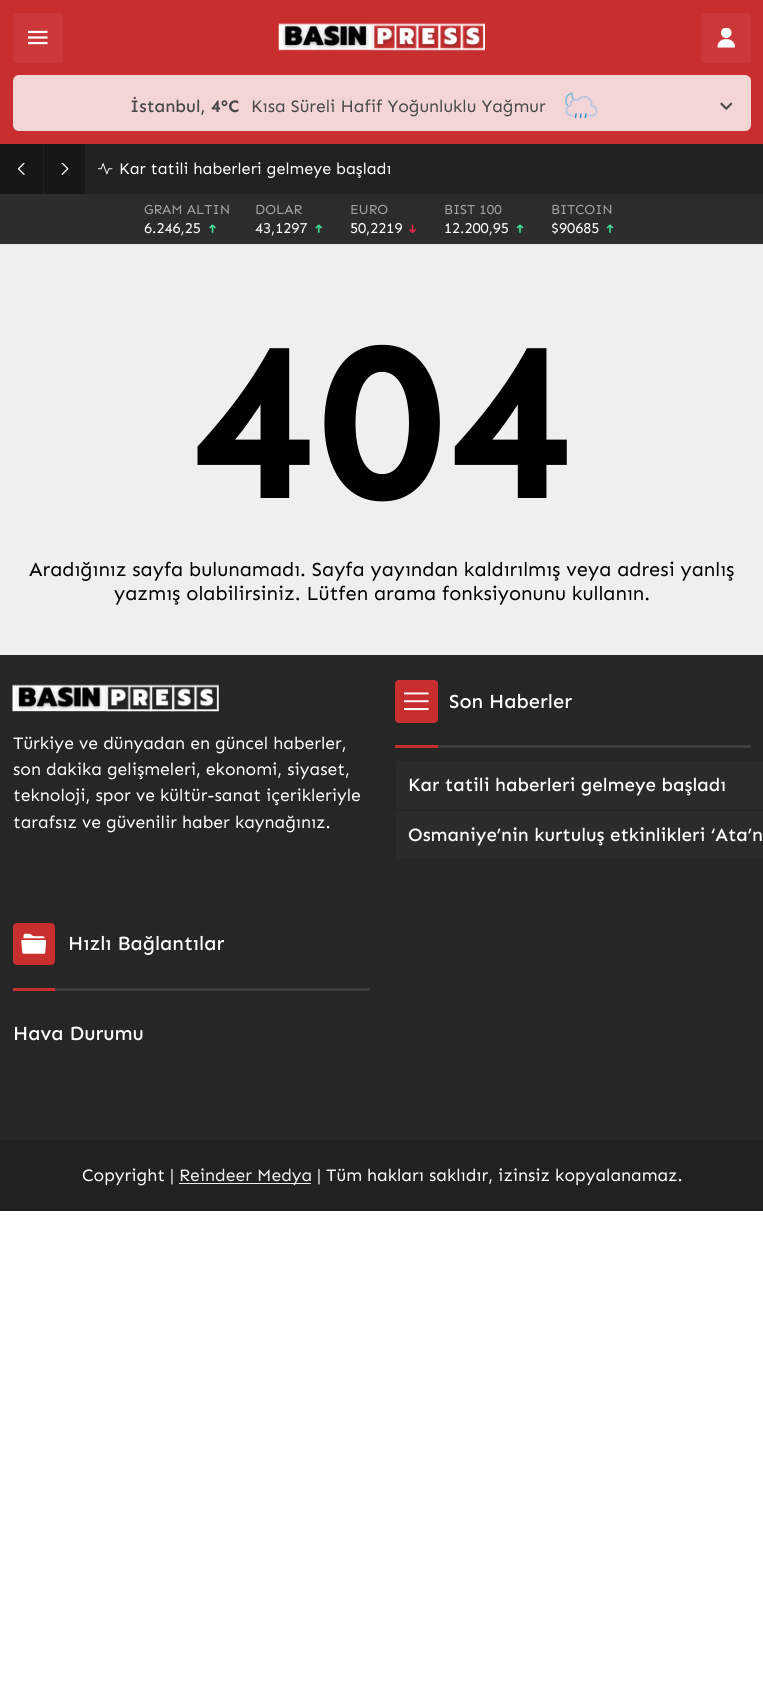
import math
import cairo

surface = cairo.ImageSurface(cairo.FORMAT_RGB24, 763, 1693)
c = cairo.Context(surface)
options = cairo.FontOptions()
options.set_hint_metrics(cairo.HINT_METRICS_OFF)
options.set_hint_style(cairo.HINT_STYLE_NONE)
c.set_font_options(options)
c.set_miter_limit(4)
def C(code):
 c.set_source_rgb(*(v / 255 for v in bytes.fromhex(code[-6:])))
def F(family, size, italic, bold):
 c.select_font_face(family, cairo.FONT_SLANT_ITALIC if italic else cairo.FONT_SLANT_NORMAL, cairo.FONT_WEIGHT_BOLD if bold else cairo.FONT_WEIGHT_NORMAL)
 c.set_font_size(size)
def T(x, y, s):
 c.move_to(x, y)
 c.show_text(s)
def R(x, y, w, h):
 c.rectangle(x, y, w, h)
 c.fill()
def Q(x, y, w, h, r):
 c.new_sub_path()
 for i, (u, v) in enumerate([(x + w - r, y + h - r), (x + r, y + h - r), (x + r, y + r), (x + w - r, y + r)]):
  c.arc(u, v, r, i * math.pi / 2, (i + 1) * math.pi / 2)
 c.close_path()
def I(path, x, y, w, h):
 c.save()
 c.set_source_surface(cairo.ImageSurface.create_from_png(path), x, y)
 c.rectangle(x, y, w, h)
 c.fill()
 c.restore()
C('ffffff')
c.paint()
C('efefef')
R(0,245,763,410)
C('eaeaea')
R(0,244,763,1)
C('c92e2f')
R(0,0,763,144)
C('cc3839')
Q(13,13,50,50,4)
c.fill()
I('1.png',28,30,20,15)
I('2.png',278,23,207,28)
Q(701,13,50,50,4)
c.fill()
I('3.png',717,28,18,20)
C('f4d5d5')
Q(13,75,738,56,6)
c.fill()
F('Sen Medium',17.5,0,0)
C('494949')
T(130,112,'İstanbul,')
F('Sen',17.5,0,1)
T(211,112,'4°C')
F('Sen',17.5,0,0)
T(251,112,'Kısa Süreli Hafif Yoğunluklu Yağmur')
I('4.png',565,92,33,27)
I('5.png',720,102,13,8)
C('212121')
R(85,144,678,50)
C('171717')
R(0,144,85,50)
I('6.png',17,163,8,12)
C('232323')
R(43,144,1,50)
I('7.png',61,163,8,12)
I('8.png',98,163,15,12)
F('Sen',16.25,0,0)
C('ffffff')
T(119,174,'Kar tatili haberleri gelmeye başladı')
C('2c2c2c')
R(0,194,763,50)
F('Sen',13.75,0,0)
C('a2a2a2')
T(144,214,'GRAM ALTIN')
F('Sen',15,0,0)
C('ffffff')
T(144,233,'6.246,25')
I('9.png',209,224,7,9)
F('Sen',13.75,0,0)
C('a2a2a2')
T(255,214,'DOLAR')
F('Sen',15,0,0)
C('ffffff')
T(255,233,'43,1297')
I('10.png',315,224,7,9)
F('Sen',13.75,0,0)
C('a2a2a2')
T(350,214,'EURO')
F('Sen',15,0,0)
C('ffffff')
T(350,233,'50,2219')
I('11.png',409,224,7,9)
F('Sen',13.75,0,0)
C('a2a2a2')
T(444,214,'BIST 100')
F('Sen',15,0,0)
C('ffffff')
T(444,233,'12.200,95')
I('12.png',516,224,8,9)
F('Sen',13.75,0,0)
C('a2a2a2')
T(551,214,'BITCOIN')
F('Sen',15,0,0)
C('ffffff')
T(551,233,'$90685')
I('12.png',606,224,8,9)
F('Sen',229,0,1)
C('000000')
T(189,498,'404')
F('Sen',20,0,0)
T(29,576,'Aradığınız sayfa bulunamadı. Sayfa yayından kaldırılmış veya adresi yanlış')
T(114,600,'yazmış olabilirsiniz. Lütfen arama fonksiyonunu kullanın.')
C('262626')
R(0,655,763,485)
I('13.png',12,684,207,28)
F('Sen',17.5,0,0)
C('ffffff')
T(13,749,'Türkiye ve dünyadan en güncel haberler,')
T(13,775,'son dakika gelişmeleri, ekonomi, siyaset,')
T(13,801,'teknoloji, spor ve kültür-sanat içerikleriyle')
T(13,828,'tarafsız ve güvenilir haber kaynağınız.')
C('3c3c3c')
R(438,745,313,3)
C('c92e2f')
Q(395,680,43,43,4)
c.fill()
I('14.png',404,692,25,19)
F('Sen Medium',20,0,0)
C('ffffff')
T(449,708,'Son Haberler')
C('c92e2f')
R(395,745,43,3)
C('2b2b2b')
R(396,761,367,48)
F('Sen Medium',18.75,0,0)
C('ffffff')
T(408,791,'Kar tatili haberleri gelmeye başladı')
C('2b2b2b')
R(396,811,367,48)
C('ffffff')
T(408,841,'Osmaniye’nin kurtuluş etkinlikleri ‘Ata’n')
C('3c3c3c')
R(55,988,315,3)
C('c92e2f')
Q(13,923,42,42,4)
c.fill()
I('15.png',21,933,25,21)
F('Sen Medium',20,0,0)
C('ffffff')
T(68,950,'Hızlı Bağlantılar')
C('c92e2f')
R(13,988,42,3)
C('ffffff')
T(13,1040,'Hava Durumu')
C('212121')
R(0,1140,763,71)
F('Sen',17.5,0,0)
C('ffffff')
T(82,1181,'Copyright |')
C('eeeeee')
R(179,1183,132,1)
T(179,1181,'Reindeer Medya')
C('ffffff')
T(317,1181,'| Tüm hakları saklıdır, izinsiz kopyalanamaz.')
surface.write_to_png('o.png')
